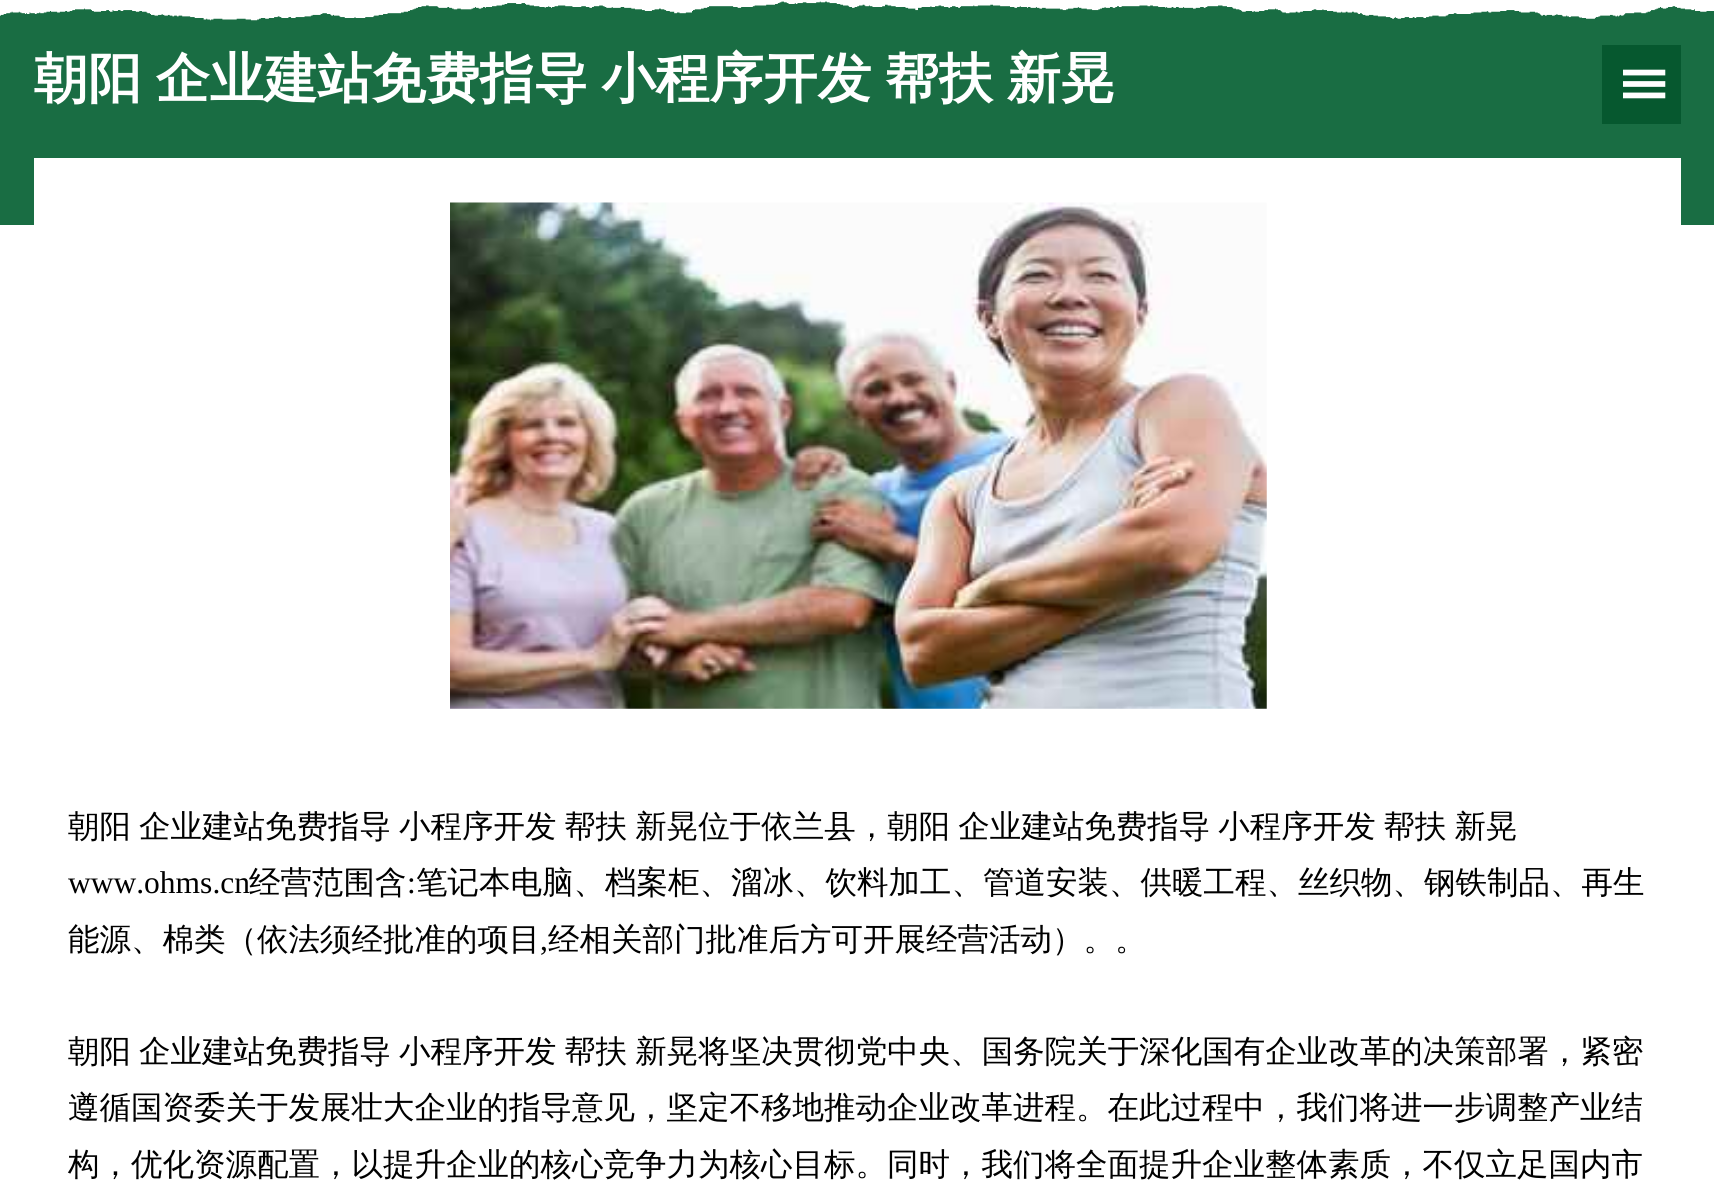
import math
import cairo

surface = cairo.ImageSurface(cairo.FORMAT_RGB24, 1714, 1198)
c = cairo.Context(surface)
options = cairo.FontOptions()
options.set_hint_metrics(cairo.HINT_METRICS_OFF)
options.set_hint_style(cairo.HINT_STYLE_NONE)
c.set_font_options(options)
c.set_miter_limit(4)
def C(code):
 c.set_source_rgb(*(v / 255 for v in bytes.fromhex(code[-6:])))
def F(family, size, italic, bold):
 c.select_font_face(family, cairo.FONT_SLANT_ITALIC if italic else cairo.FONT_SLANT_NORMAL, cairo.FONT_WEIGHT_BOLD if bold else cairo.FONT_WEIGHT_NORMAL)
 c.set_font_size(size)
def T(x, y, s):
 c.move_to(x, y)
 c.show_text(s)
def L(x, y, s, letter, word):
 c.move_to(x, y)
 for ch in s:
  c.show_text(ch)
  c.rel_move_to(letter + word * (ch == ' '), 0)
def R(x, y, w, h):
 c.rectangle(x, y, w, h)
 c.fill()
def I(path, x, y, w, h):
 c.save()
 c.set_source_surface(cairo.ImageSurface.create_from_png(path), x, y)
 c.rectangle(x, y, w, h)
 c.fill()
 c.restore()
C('ffffff')
c.paint()
C('196d43')
R(0,1,1714,224)
I('1.png',0,0,1714,21)
F('WenQuanYi Zen Hei',54,0,1)
C('ffffff')
L(34,97,'朝阳 企业建站免费指导 小程序开发 帮扶 新晃',0,-2.5)
C('06582f')
R(1602,45,79,79)
F('DejaVu Sans',58,0,0)
C('ffffff')
c.save()
c.translate(1623,64)
c.rotate(90 * math.pi / 180)
T(0,0,'Ⅲ')
c.restore()
R(34,158,1647,67)
I('2.png',450,202,817,507)
F('WenQuanYi Zen Hei Medium',31.5,0,0)
C('000000')
L(68,837,'朝阳 企业建站免费指导 小程序开发 帮扶 新晃位于依兰县，朝阳 企业建站免费指导 小程序开发 帮扶 新晃',0,-1.5)
F('Liberation Serif',31.5,0,0)
T(68,893,'www.ohms.cn')
F('WenQuanYi Zen Hei Medium',31.5,0,0)
T(249,893,'经营范围含')
F('Liberation Serif',31.5,0,0)
T(407,893,':')
F('WenQuanYi Zen Hei Medium',31.5,0,0)
T(416,893,'笔记本电脑、档案柜、溜冰、饮料加工、管道安装、供暖工程、丝织物、钢铁制品、再生')
T(68,950,'能源、棉类（依法须经批准的项目')
F('Liberation Serif',31.5,0,0)
T(540,950,',')
F('WenQuanYi Zen Hei Medium',31.5,0,0)
T(548,950,'经相关部门批准后方可开展经营活动）。。')
L(68,1062,'朝阳 企业建站免费指导 小程序开发 帮扶 新晃将坚决贯彻党中央、国务院关于深化国有企业改革的决策部署，紧密',0,-1.5)
T(68,1118,'遵循国资委关于发展壮大企业的指导意见，坚定不移地推动企业改革进程。在此过程中，我们将进一步调整产业结')
T(68,1175,'构，优化资源配置，以提升企业的核心竞争力为核心目标。同时，我们将全面提升企业整体素质，不仅立足国内市')
surface.write_to_png('o.png')
